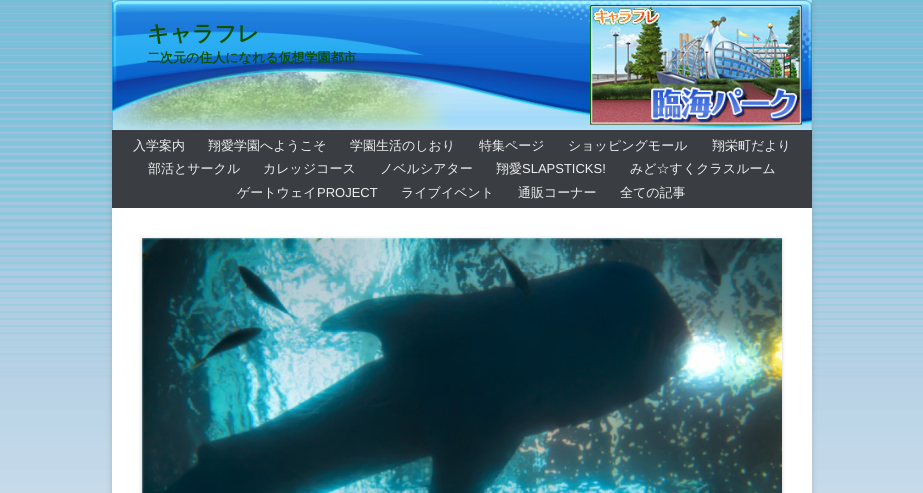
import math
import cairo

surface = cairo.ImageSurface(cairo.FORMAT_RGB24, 923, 493)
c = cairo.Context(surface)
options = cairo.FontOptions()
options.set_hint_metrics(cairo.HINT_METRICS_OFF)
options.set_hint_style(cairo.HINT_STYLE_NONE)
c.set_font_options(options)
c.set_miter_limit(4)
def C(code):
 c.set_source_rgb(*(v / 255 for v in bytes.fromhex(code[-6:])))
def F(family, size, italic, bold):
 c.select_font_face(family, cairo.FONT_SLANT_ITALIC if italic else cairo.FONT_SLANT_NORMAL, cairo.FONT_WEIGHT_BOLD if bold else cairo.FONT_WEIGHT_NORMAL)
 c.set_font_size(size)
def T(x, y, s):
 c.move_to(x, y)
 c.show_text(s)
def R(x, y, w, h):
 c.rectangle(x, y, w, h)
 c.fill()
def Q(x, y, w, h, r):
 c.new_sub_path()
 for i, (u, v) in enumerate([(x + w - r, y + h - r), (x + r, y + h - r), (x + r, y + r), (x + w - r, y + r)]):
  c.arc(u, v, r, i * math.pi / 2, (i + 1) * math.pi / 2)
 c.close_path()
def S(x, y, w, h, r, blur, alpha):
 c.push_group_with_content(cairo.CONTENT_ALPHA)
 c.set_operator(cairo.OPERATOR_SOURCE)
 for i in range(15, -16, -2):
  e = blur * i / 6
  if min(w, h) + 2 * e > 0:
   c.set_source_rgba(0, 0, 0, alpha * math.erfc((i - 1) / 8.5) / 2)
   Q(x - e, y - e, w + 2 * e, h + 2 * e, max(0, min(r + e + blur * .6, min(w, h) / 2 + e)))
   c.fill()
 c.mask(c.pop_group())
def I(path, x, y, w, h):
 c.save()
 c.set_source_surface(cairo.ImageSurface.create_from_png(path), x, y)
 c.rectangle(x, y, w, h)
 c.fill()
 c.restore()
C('ffffff')
c.paint()
I('1.png',0,0,923,493)
C('646464')
S(112,2,700,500,0,3,.3)
C('ffffff')
R(112,208,700,285)
I('2.png',112,0,700,130)
F('WenQuanYi Zen Hei',22,0,1)
C('065002')
T(147,41,'キャラフレ')
F('WenQuanYi Zen Hei',13,0,1)
T(147,62,'二次元の住人になれる仮想学園都市')
I('3.png',590,5,212,120)
C('3a3d41')
R(112,130,700,78)
F('WenQuanYi Zen Hei Medium',13,0,0)
C('eeeeee')
T(133,150,'入学案内')
T(208,150,'翔愛学園へようこそ')
T(350,150,'学園生活のしおり')
T(479,150,'特集ページ')
T(568,150,'ショッピングモール')
T(712,150,'翔栄町だより')
T(148,173,'部活とサークル')
T(263,173,'カレッジコース')
T(380,173,'ノベルシアター')
T(496,173,'翔愛')
F('Liberation Sans',13,0,0)
T(522,173,'SLAPSTICKS!')
F('WenQuanYi Zen Hei Medium',13,0,0)
T(630,173,'みど☆すくクラスルーム')
T(237,197,'ゲートウェイ')
F('Liberation Sans',13,0,0)
T(317,197,'PROJECT')
F('WenQuanYi Zen Hei Medium',13,0,0)
T(401,197,'ライブイベント')
T(518,197,'通販コーナー')
T(620,197,'全ての記事')
C('000000')
S(142,239,640,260,0,2,.2)
I('4.png',142,238,640,255)
surface.write_to_png('o.png')
